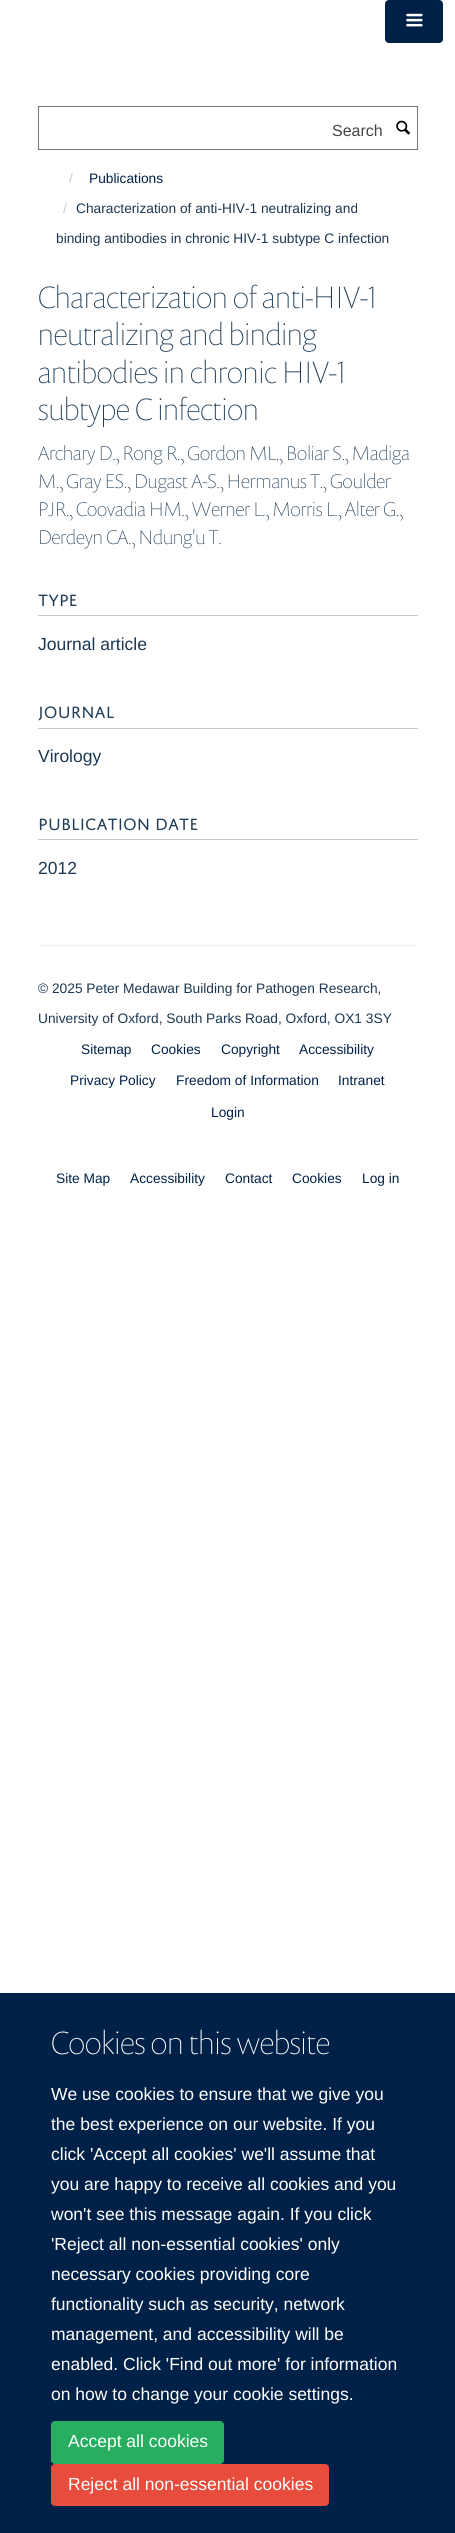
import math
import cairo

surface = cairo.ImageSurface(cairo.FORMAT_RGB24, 455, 2533)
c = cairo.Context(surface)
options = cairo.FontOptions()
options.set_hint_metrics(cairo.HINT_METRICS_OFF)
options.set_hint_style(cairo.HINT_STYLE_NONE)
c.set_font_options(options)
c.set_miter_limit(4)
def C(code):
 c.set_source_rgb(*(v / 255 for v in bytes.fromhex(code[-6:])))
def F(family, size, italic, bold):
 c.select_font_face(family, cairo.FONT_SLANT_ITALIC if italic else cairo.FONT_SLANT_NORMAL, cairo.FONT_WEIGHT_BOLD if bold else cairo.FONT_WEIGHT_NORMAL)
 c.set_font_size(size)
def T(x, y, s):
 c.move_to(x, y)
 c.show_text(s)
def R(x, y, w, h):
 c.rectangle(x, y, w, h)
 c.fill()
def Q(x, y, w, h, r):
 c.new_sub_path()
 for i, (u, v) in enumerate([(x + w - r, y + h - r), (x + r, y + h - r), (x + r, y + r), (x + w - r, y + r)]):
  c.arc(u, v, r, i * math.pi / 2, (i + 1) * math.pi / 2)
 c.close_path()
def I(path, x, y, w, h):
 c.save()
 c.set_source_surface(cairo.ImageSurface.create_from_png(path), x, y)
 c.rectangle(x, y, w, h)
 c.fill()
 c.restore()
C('ffffff')
c.paint()
C('002147')
Q(385.5,.5,57,42,3.5)
c.fill_preserve()
c.set_line_width(1)
c.stroke()
I('1.png',406,13,17,14)
c.rectangle(38.5,106.5,379,43)
C('777777')
c.stroke()
F('Liberation Sans',16,0,0)
C('444444')
T(332,136,'Search')
I('2.png',396,120,14,15)
F('Liberation Sans',13.75,0,0)
C('cccccc')
T(69,183,'/')
C('002147')
T(89,183,'Publications')
C('cccccc')
T(63,213,'/')
C('1d3850')
T(76,213,'Characterization of anti-HIV-1 neutralizing and')
T(56,243,'binding antibodies in chronic HIV-1 subtype C infection')
F('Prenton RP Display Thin',31.25,0,0)
C('203e58')
T(38,308,'Characterization of anti-HIV-1')
T(38,345,'neutralizing and binding')
T(38,383,'antibodies in chronic HIV-1')
T(38,420,'subtype C infection')
F('Prenton RP Display Thin',20,0,0)
T(38,460,'Archary D., Rong R., Gordon ML., Boliar S., Madiga')
T(38,488,'M., Gray ES., Dugast A-S., Hermanus T., Goulder')
T(38,516,'PJR., Coovadia HM., Werner L., Morris L., Alter G.,')
T(38,544,'Derdeyn CA., Ndung\'u T.')
C('c6cacf')
R(38,615,380,1)
F('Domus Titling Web',17.5,0,0)
C('203e58')
T(38,606,'TYPE')
F('Liberation Sans',17.5,0,0)
C('1d3850')
T(38,650,'Journal article')
C('c6cacf')
R(38,728,380,1)
F('Domus Titling Web',17.5,0,0)
C('203e58')
T(38,718,'JOURNAL')
F('Liberation Sans',17.5,0,0)
C('1d3850')
T(38,762,'Virology')
C('c6cacf')
R(38,839,380,1)
F('Domus Titling Web',17.5,0,0)
C('203e58')
T(38,830,'PUBLICATION DATE')
F('Liberation Sans',17.5,0,0)
C('1d3850')
T(38,874,'2012')
C('eeeeee')
R(38,945,380,1)
F('Liberation Sans',13.75,0,0)
C('1d3850')
T(38,993,'© 2025 Peter Medawar Building for Pathogen Research,')
T(38,1023,'University of Oxford, South Parks Road, Oxford, OX1 3SY')
C('002147')
T(81,1054,'Sitemap')
T(151,1054,'Cookies')
T(221,1054,'Copyright')
T(299,1054,'Accessibility')
T(70,1085,'Privacy Policy')
T(176,1085,'Freedom of Information')
T(338,1085,'Intranet')
T(211,1117,'Login')
T(56,1183,'Site Map')
T(130,1183,'Accessibility')
T(225,1183,'Contact')
T(292,1183,'Cookies')
T(362,1183,'Log in')
R(0,1993,455,540)
F('Prenton RP Display Thin',32.5,0,0)
C('ffffff')
T(51,2054,'Cookies on this website')
F('Liberation Sans',17.5,0,0)
T(51,2100,'We use cookies to ensure that we give you')
T(51,2130,'the best experience on our website. If you')
T(51,2160,'click \'Accept all cookies\' we\'ll assume that')
T(51,2190,'you are happy to receive all cookies and you')
T(51,2220,'won\'t see this message again. If you click')
T(51,2250,'\'Reject all non-essential cookies\' only')
T(51,2280,'necessary cookies providing core')
T(51,2310,'functionality such as security, network')
T(51,2340,'management, and accessibility will be')
T(51,2370,'enabled. Click \'Find out more\' for information')
T(51,2400,'on how to change your cookie settings.')
C('27ae60')
Q(51.5,2421.5,172,42,3.5)
c.fill_preserve()
c.stroke()
C('ffffff')
T(68,2447,'Accept all cookies')
C('e74c3c')
Q(51.5,2464.5,277,41,3.5)
c.fill_preserve()
c.stroke()
C('ffffff')
T(68,2490,'Reject all non-essential cookies')
surface.write_to_png('o.png')
